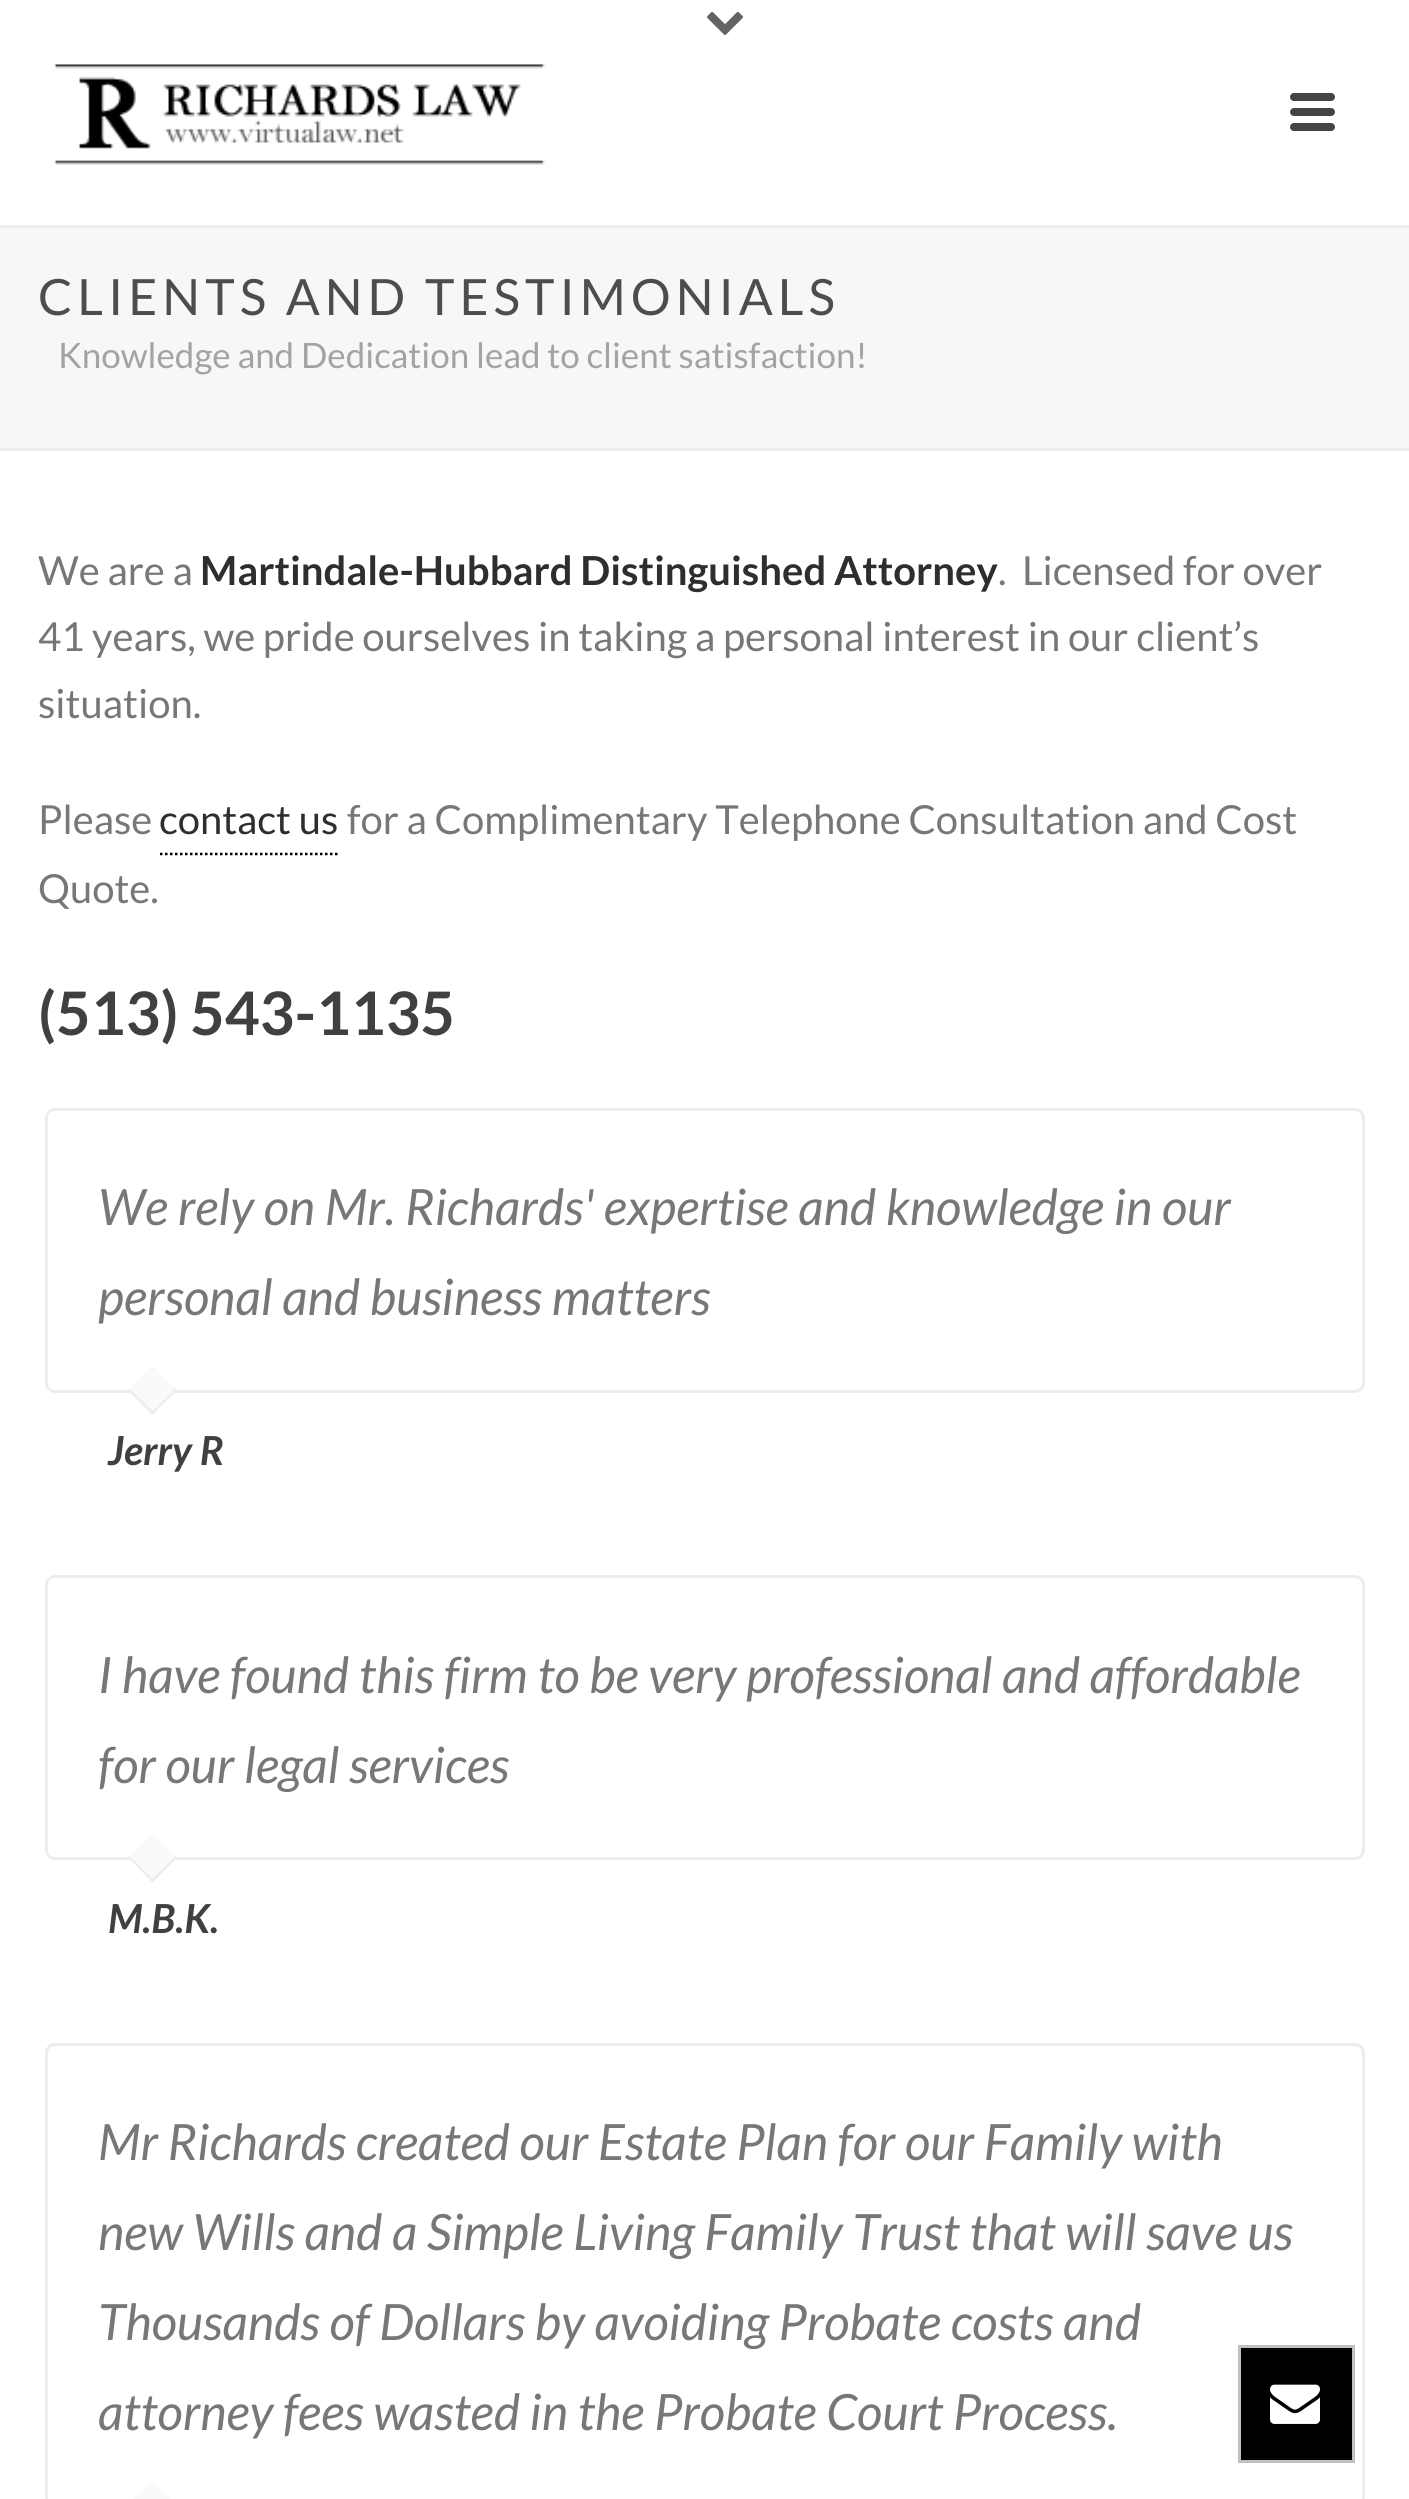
import math
import cairo

surface = cairo.ImageSurface(cairo.FORMAT_RGB24, 1409, 2499)
c = cairo.Context(surface)
options = cairo.FontOptions()
options.set_hint_metrics(cairo.HINT_METRICS_OFF)
options.set_hint_style(cairo.HINT_STYLE_NONE)
c.set_font_options(options)
c.set_miter_limit(4)
def C(code):
 c.set_source_rgb(*(v / 255 for v in bytes.fromhex(code[-6:])))
def F(family, size, italic, bold):
 c.select_font_face(family, cairo.FONT_SLANT_ITALIC if italic else cairo.FONT_SLANT_NORMAL, cairo.FONT_WEIGHT_BOLD if bold else cairo.FONT_WEIGHT_NORMAL)
 c.set_font_size(size)
def T(x, y, s):
 c.move_to(x, y)
 c.show_text(s)
def L(x, y, s, letter, word):
 c.move_to(x, y)
 for ch in s:
  c.show_text(ch)
  c.rel_move_to(letter + word * (ch == ' '), 0)
def R(x, y, w, h):
 c.rectangle(x, y, w, h)
 c.fill()
def Q(x, y, w, h, r):
 c.new_sub_path()
 for i, (u, v) in enumerate([(x + w - r, y + h - r), (x + r, y + h - r), (x + r, y + r), (x + w - r, y + r)]):
  c.arc(u, v, r, i * math.pi / 2, (i + 1) * math.pi / 2)
 c.close_path()
def I(path, x, y, w, h):
 c.save()
 c.set_source_surface(cairo.ImageSurface.create_from_png(path), x, y)
 c.rectangle(x, y, w, h)
 c.fill()
 c.restore()
C('ffffff')
c.paint()
C('f7f7f7')
R(0,228,1409,220)
C('ededed')
R(0,448,1409,3)
R(0,225,1409,3)
I('1.png',707,11,36,24)
I('2.png',54,64,491,101)
C('444444')
Q(1290,93,45,8,4)
c.fill()
Q(1290,108,45,8,4)
c.fill()
Q(1290,123,45,8,4)
c.fill()
F('Lato',50,0,0)
C('4d4d4d')
L(38,315,'CLIENTS AND TESTIMONIALS',5,0)
F('Lato',35,0,0)
C('a3a3a3')
T(58,368,'Knowledge and Dedication lead to client satisfaction!')
F('Lato',40,0,0)
C('777777')
T(38,585,'We are a')
F('Lato',40,0,1)
C('2e2e2e')
T(200,585,'Martindale-Hubbard Distinguished Attorney')
F('Lato',40,0,0)
C('777777')
T(998,585,'.  Licensed for over')
T(38,651,'41 years, we pride ourselves in taking a personal interest in our client’s')
T(38,718,'situation.')
T(38,834,'Please')
c.new_path()
c.move_to(160,854)
c.line_to(340,854)
C('000000')
c.set_line_width(2.5)
c.set_dash([2.5,2.5])
c.stroke()
C('2e2e2e')
T(159,834,'contact us')
C('777777')
T(347,834,'for a Complimentary Telephone Consultation and Cost')
T(38,903,'Quote.')
F('Lato',60,0,1)
C('404040')
T(38,1035,'(513) 543-1135')
Q(46.5,1109.5,1317,282,8.5)
C('ededed')
c.set_line_width(3)
c.set_dash([])
c.stroke()
F('Lato',50,1,0)
C('777777')
T(98,1225,'We rely on Mr. Richards\' expertise and knowledge in our')
T(98,1315,'personal and business matters')
C('fafafa')
c.new_path()
c.move_to(153,1365)
c.line_to(177,1390)
c.line_to(152,1415)
c.line_to(128,1390)
c.close_path()
c.fill()
C('ededed')
c.new_path()
c.move_to(175.5,1388.5)
c.line_to(177,1390)
c.line_to(152.5,1415)
c.line_to(150.5,1413)
c.close_path()
c.fill()
c.new_path()
c.move_to(129.5,1388.5)
c.line_to(154.5,1413)
c.line_to(152.5,1415)
c.line_to(128,1390)
c.close_path()
c.fill()
F('Lato',40,1,1)
C('404040')
T(108,1465,'Jerry R')
Q(46.5,1576.5,1317,282,8.5)
C('ededed')
c.stroke()
F('Lato',50,1,0)
C('777777')
T(98,1693,'I have found this firm to be very professional and affordable')
T(98,1783,'for our legal services')
C('fafafa')
c.new_path()
c.move_to(153,1833)
c.line_to(177,1858)
c.line_to(153,1882)
c.line_to(128,1858)
c.close_path()
c.fill()
C('ededed')
c.new_path()
c.move_to(175.5,1856)
c.line_to(177,1857.5)
c.line_to(152.5,1882.5)
c.line_to(150.5,1880.5)
c.close_path()
c.fill()
c.new_path()
c.move_to(129.5,1856)
c.line_to(154.5,1880.5)
c.line_to(152.5,1882.5)
c.line_to(128,1857.5)
c.close_path()
c.fill()
F('Lato',40,1,1)
C('404040')
T(108,1933,'M.B.K.')
Q(46.5,2044.5,1317,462,8.5)
C('ededed')
c.stroke()
F('Lato',50,1,0)
C('777777')
T(98,2160,'Mr Richards created our Estate Plan for our Family with')
T(98,2250,'new Wills and a Simple Living Family Trust that will save us')
T(98,2340,'Thousands of Dollars by avoiding Probate costs and')
T(98,2430,'attorney fees wasted in the Probate Court Process.')
C('fafafa')
c.new_path()
c.move_to(152,2480)
c.line_to(177,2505)
c.line_to(152,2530)
c.line_to(128,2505)
c.close_path()
c.fill()
C('000000')
c.rectangle(1239.5,2346.5,114,115)
c.fill_preserve()
C('c0c0c0')
c.stroke()
I('3.png',1270,2384,50,40)
surface.write_to_png('o.png')
